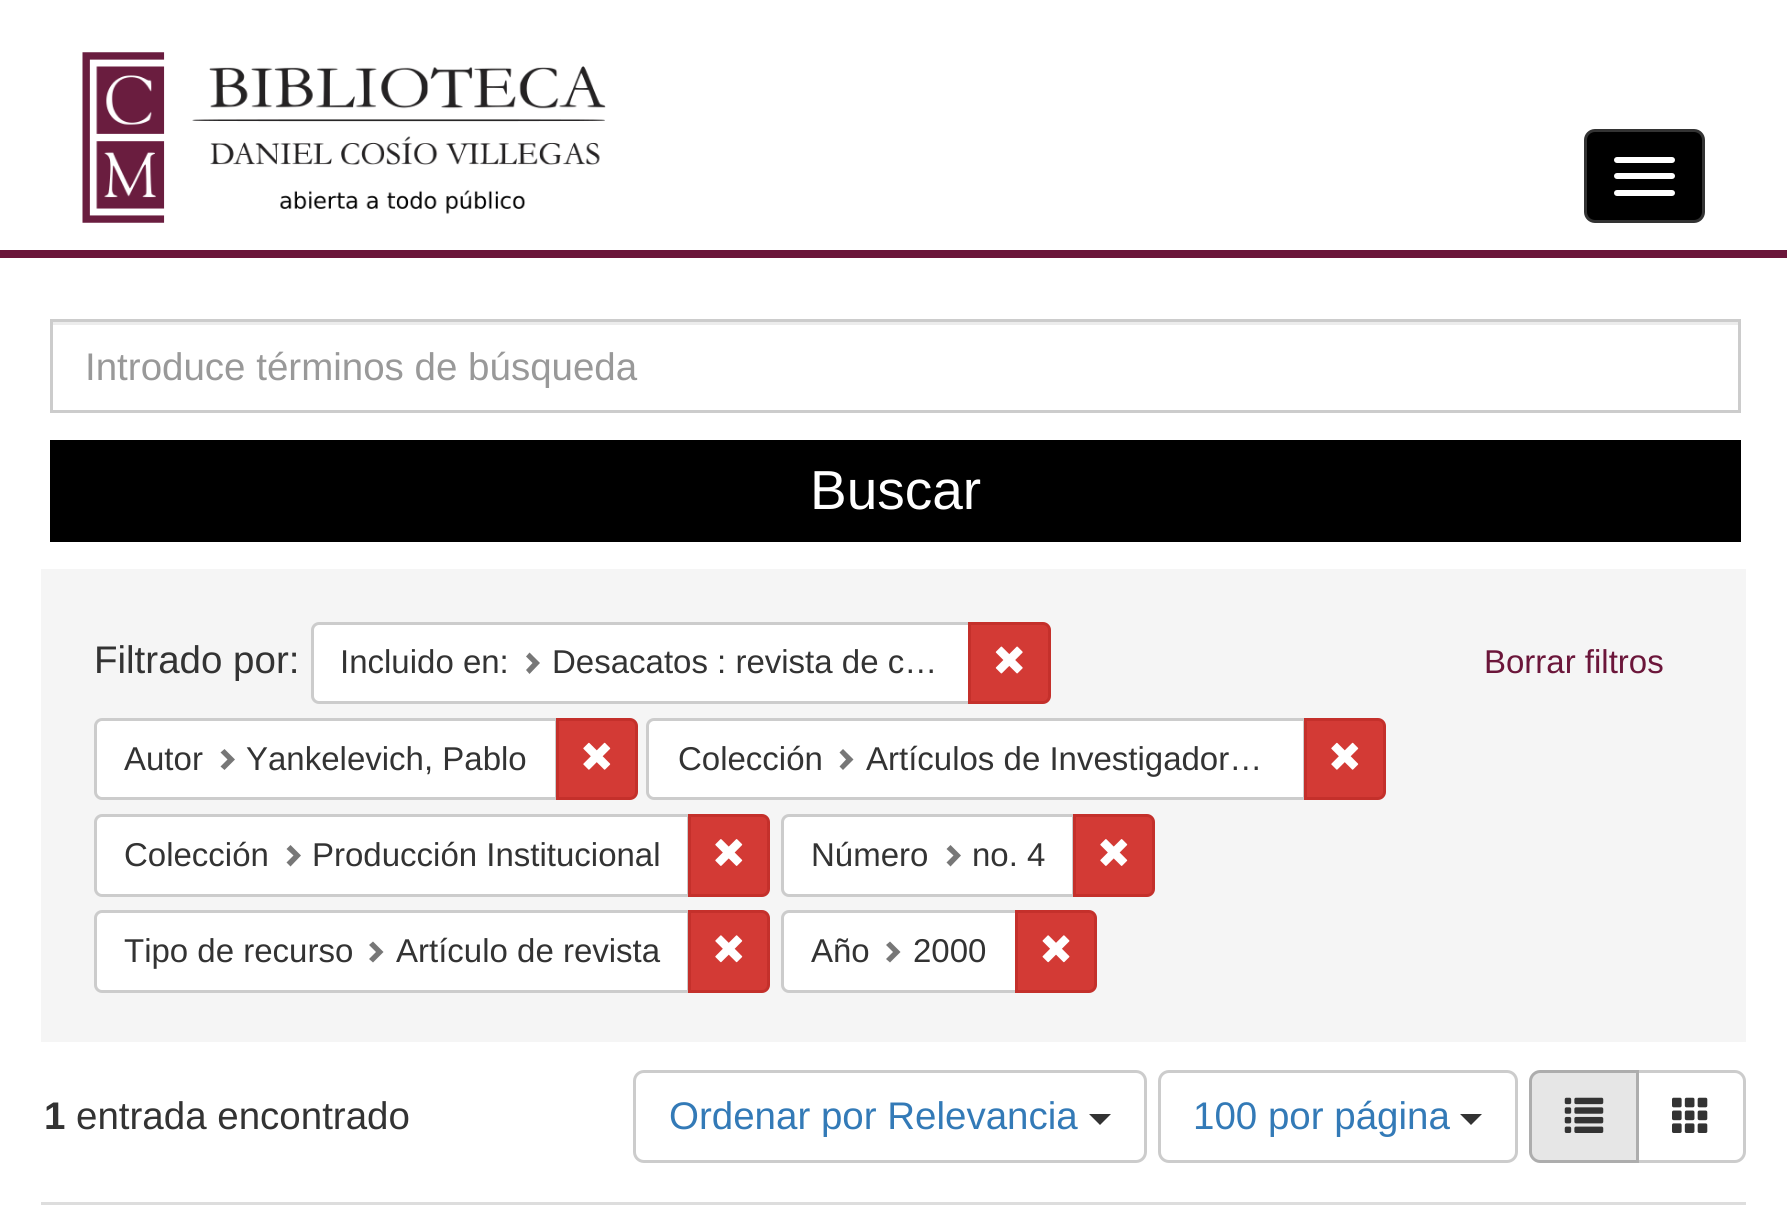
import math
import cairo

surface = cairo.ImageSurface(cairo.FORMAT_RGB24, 1787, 1209)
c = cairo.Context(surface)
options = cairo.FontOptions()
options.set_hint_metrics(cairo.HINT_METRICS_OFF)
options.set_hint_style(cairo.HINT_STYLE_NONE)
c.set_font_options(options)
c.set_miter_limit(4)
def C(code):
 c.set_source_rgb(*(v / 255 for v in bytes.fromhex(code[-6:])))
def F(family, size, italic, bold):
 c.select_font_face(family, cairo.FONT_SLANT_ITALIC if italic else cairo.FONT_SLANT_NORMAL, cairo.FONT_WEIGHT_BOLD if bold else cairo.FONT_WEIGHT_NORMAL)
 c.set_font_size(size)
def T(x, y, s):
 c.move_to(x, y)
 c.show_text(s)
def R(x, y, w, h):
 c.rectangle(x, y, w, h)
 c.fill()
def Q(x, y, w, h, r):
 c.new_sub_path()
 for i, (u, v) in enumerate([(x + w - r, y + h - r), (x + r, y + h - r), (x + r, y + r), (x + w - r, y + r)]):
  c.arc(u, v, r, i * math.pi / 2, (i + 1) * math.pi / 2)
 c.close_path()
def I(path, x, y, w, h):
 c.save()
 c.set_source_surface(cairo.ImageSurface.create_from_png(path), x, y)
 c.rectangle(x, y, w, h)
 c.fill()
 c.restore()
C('ffffff')
c.paint()
C('6b163a')
R(0,250,1787,8)
I('1.png',82,52,524,171)
C('000000')
Q(1585.5,130.5,118,91,9.5)
c.fill_preserve()
C('333333')
c.set_line_width(3)
c.stroke()
C('ffffff')
Q(1614,157,61,6,3)
c.fill()
Q(1614,173,61,6,3)
c.fill()
Q(1614,190,61,6,3)
c.fill()
C('ececec')
R(52,322,1686,3)
c.rectangle(51.5,320.5,1688,91)
C('cccccc')
c.stroke()
F('Liberation Sans',38.5,0,0)
C('999999')
T(85,380,'Introduce términos de búsqueda')
C('000000')
R(50,440,1691,102)
F('Liberation Sans',55,0,0)
C('ffffff')
T(810,509,'Buscar')
C('f5f5f5')
R(41,569,1705,473)
F('Liberation Sans',38.5,0,0)
C('333333')
T(94,673,'Filtrado por:')
C('ffffff')
c.new_path()
c.move_to(319,623.5)
c.line_to(969.5,623.5)
c.line_to(969.5,702.5)
c.line_to(319,702.5)
c.curve_to(315.5,702.5,312.5,699.5,312.5,696)
c.line_to(312.5,630)
c.curve_to(312.5,626.5,315.5,623.5,319,623.5)
c.close_path()
c.fill_preserve()
C('cccccc')
c.stroke()
F('Liberation Sans',33,0,0)
C('333333')
T(340,673,'Incluido en:')
C('777777')
c.new_path()
c.move_to(540,663)
c.line_to(529.5,674)
c.line_to(526,670)
c.line_to(532.5,663)
c.line_to(526,656.5)
c.line_to(529.5,652.5)
c.close_path()
c.fill()
C('333333')
T(552,673,'Desacatos : revista de c…')
C('d33a35')
c.new_path()
c.move_to(969.5,623.5)
c.line_to(1043,623.5)
c.curve_to(1046.5,623.5,1049.5,626.5,1049.5,630)
c.line_to(1049.5,696)
c.curve_to(1049.5,699.5,1046.5,702.5,1043,702.5)
c.line_to(969.5,702.5)
c.close_path()
c.fill_preserve()
C('c4302b')
c.stroke()
I('2.png',995,646,28,28)
C('6b163a')
T(1484,673,'Borrar filtros')
C('ffffff')
c.new_path()
c.move_to(102,719.5)
c.line_to(556.5,719.5)
c.line_to(556.5,798.5)
c.line_to(102,798.5)
c.curve_to(98.5,798.5,95.5,795.5,95.5,792)
c.line_to(95.5,726)
c.curve_to(95.5,722.5,98.5,719.5,102,719.5)
c.close_path()
c.fill_preserve()
C('cccccc')
c.stroke()
C('333333')
T(124,770,'Autor')
C('777777')
c.new_path()
c.move_to(235,759.5)
c.line_to(224.5,770)
c.line_to(220.5,766.5)
c.line_to(227.5,759.5)
c.line_to(220.5,752.5)
c.line_to(224.5,749)
c.close_path()
c.fill()
C('333333')
T(246,770,'Yankelevich, Pablo')
C('d33a35')
c.new_path()
c.move_to(557.5,719.5)
c.line_to(630,719.5)
c.curve_to(633.5,719.5,636.5,722.5,636.5,726)
c.line_to(636.5,792)
c.curve_to(636.5,795.5,633.5,798.5,630,798.5)
c.line_to(557.5,798.5)
c.close_path()
c.fill_preserve()
C('c4302b')
c.stroke()
I('3.png',583,742,28,28)
C('ffffff')
c.new_path()
c.move_to(654,719.5)
c.line_to(1304.5,719.5)
c.line_to(1304.5,798.5)
c.line_to(654,798.5)
c.curve_to(650.5,798.5,647.5,795.5,647.5,792)
c.line_to(647.5,726)
c.curve_to(647.5,722.5,650.5,719.5,654,719.5)
c.close_path()
c.fill_preserve()
C('cccccc')
c.stroke()
C('333333')
T(678,770,'Colección')
C('777777')
c.new_path()
c.move_to(853.5,759.5)
c.line_to(843,770)
c.line_to(839.5,766.5)
c.line_to(846,759.5)
c.line_to(839.5,752.5)
c.line_to(843,749)
c.close_path()
c.fill()
C('333333')
T(866,770,'Artículos de Investigador…')
C('d33a35')
c.new_path()
c.move_to(1305.5,719.5)
c.line_to(1378,719.5)
c.curve_to(1381.5,719.5,1384.5,722.5,1384.5,726)
c.line_to(1384.5,792)
c.curve_to(1384.5,795.5,1381.5,798.5,1378,798.5)
c.line_to(1305.5,798.5)
c.close_path()
c.fill_preserve()
C('c4302b')
c.stroke()
I('3.png',1331,742,28,28)
C('ffffff')
c.new_path()
c.move_to(102,815.5)
c.line_to(688.5,815.5)
c.line_to(688.5,895.5)
c.line_to(102,895.5)
c.curve_to(98.5,895.5,95.5,892.5,95.5,889)
c.line_to(95.5,822)
c.curve_to(95.5,818.5,98.5,815.5,102,815.5)
c.close_path()
c.fill_preserve()
C('cccccc')
c.stroke()
C('333333')
T(124,866,'Colección')
C('777777')
c.new_path()
c.move_to(301,855.5)
c.line_to(290.5,866.5)
c.line_to(286.5,862.5)
c.line_to(293.5,855.5)
c.line_to(286.5,849)
c.line_to(290.5,845)
c.close_path()
c.fill()
C('333333')
T(312,866,'Producción Institucional')
C('d33a35')
c.new_path()
c.move_to(689.5,815.5)
c.line_to(762,815.5)
c.curve_to(765.5,815.5,768.5,818.5,768.5,822)
c.line_to(768.5,889)
c.curve_to(768.5,892.5,765.5,895.5,762,895.5)
c.line_to(689.5,895.5)
c.close_path()
c.fill_preserve()
C('c4302b')
c.stroke()
I('4.png',715,839,28,27)
C('ffffff')
c.new_path()
c.move_to(789,815.5)
c.line_to(1073.5,815.5)
c.line_to(1073.5,895.5)
c.line_to(789,895.5)
c.curve_to(785.5,895.5,782.5,892.5,782.5,889)
c.line_to(782.5,822)
c.curve_to(782.5,818.5,785.5,815.5,789,815.5)
c.close_path()
c.fill_preserve()
C('cccccc')
c.stroke()
C('333333')
T(811,866,'Número')
C('777777')
c.new_path()
c.move_to(961,855.5)
c.line_to(950.5,866.5)
c.line_to(946.5,862.5)
c.line_to(953.5,855.5)
c.line_to(946.5,849)
c.line_to(950.5,845)
c.close_path()
c.fill()
C('333333')
T(972,866,'no. 4')
C('d33a35')
c.new_path()
c.move_to(1074.5,815.5)
c.line_to(1147,815.5)
c.curve_to(1150.5,815.5,1153.5,818.5,1153.5,822)
c.line_to(1153.5,889)
c.curve_to(1153.5,892.5,1150.5,895.5,1147,895.5)
c.line_to(1074.5,895.5)
c.close_path()
c.fill_preserve()
C('c4302b')
c.stroke()
I('4.png',1100,839,28,27)
C('ffffff')
c.new_path()
c.move_to(102,911.5)
c.line_to(688.5,911.5)
c.line_to(688.5,991.5)
c.line_to(102,991.5)
c.curve_to(98.5,991.5,95.5,988.5,95.5,985)
c.line_to(95.5,918)
c.curve_to(95.5,914.5,98.5,911.5,102,911.5)
c.close_path()
c.fill_preserve()
C('cccccc')
c.stroke()
C('333333')
T(124,962,'Tipo de recurso')
C('777777')
c.new_path()
c.move_to(383.5,952)
c.line_to(373,962.5)
c.line_to(369,959)
c.line_to(376,952)
c.line_to(369,945)
c.line_to(373,941.5)
c.close_path()
c.fill()
C('333333')
T(396,962,'Artículo de revista')
C('d33a35')
c.new_path()
c.move_to(689.5,911.5)
c.line_to(762,911.5)
c.curve_to(765.5,911.5,768.5,914.5,768.5,918)
c.line_to(768.5,985)
c.curve_to(768.5,988.5,765.5,991.5,762,991.5)
c.line_to(689.5,991.5)
c.close_path()
c.fill_preserve()
C('c4302b')
c.stroke()
I('5.png',715,935,28,28)
C('ffffff')
c.new_path()
c.move_to(789,911.5)
c.line_to(1016.5,911.5)
c.line_to(1016.5,991.5)
c.line_to(789,991.5)
c.curve_to(785.5,991.5,782.5,988.5,782.5,985)
c.line_to(782.5,918)
c.curve_to(782.5,914.5,785.5,911.5,789,911.5)
c.close_path()
c.fill_preserve()
C('cccccc')
c.stroke()
C('333333')
T(811,962,'Año')
C('777777')
c.new_path()
c.move_to(900.5,952)
c.line_to(890,962.5)
c.line_to(886,959)
c.line_to(893,952)
c.line_to(886,945)
c.line_to(890,941.5)
c.close_path()
c.fill()
C('333333')
T(913,962,'2000')
C('d33a35')
c.new_path()
c.move_to(1016.5,911.5)
c.line_to(1089,911.5)
c.curve_to(1092.5,911.5,1095.5,914.5,1095.5,918)
c.line_to(1095.5,985)
c.curve_to(1095.5,988.5,1092.5,991.5,1089,991.5)
c.line_to(1016.5,991.5)
c.close_path()
c.fill_preserve()
C('c4302b')
c.stroke()
I('6.png',1042,935,28,28)
C('dddddd')
R(41,1202,1705,3)
F('Liberation Sans',38.5,0,1)
C('333333')
T(44,1129,'1')
F('Liberation Sans',38.5,0,0)
T(76,1129,'entrada encontrado')
Q(634.5,1071.5,511,90,9.5)
C('cccccc')
c.stroke()
C('337ab7')
T(669,1129,'Ordenar por Relevancia')
C('333333')
c.new_path()
c.move_to(1089,1114)
c.line_to(1111,1114)
c.line_to(1100,1125)
c.close_path()
c.fill()
Q(1159.5,1071.5,357,90,9.5)
C('cccccc')
c.stroke()
C('337ab7')
T(1193,1129,'100 por página')
C('333333')
c.new_path()
c.move_to(1460,1114)
c.line_to(1482,1114)
c.line_to(1471,1125)
c.close_path()
c.fill()
c.new_path()
c.move_to(1637.5,1071.5)
c.line_to(1735,1071.5)
c.curve_to(1740,1071.5,1744.5,1076,1744.5,1081)
c.line_to(1744.5,1152)
c.curve_to(1744.5,1157,1740,1161.5,1735,1161.5)
c.line_to(1637.5,1161.5)
c.close_path()
C('cccccc')
c.stroke()
C('e6e6e6')
c.new_path()
c.move_to(1540,1071.5)
c.line_to(1637.5,1071.5)
c.line_to(1637.5,1161.5)
c.line_to(1540,1161.5)
c.curve_to(1535,1161.5,1530.5,1157,1530.5,1152)
c.line_to(1530.5,1081)
c.curve_to(1530.5,1076,1535,1071.5,1540,1071.5)
c.close_path()
c.fill_preserve()
C('adadad')
c.stroke()
I('7.png',1564,1097,40,36)
I('8.png',1672,1097,36,36)
surface.write_to_png('o.png')
